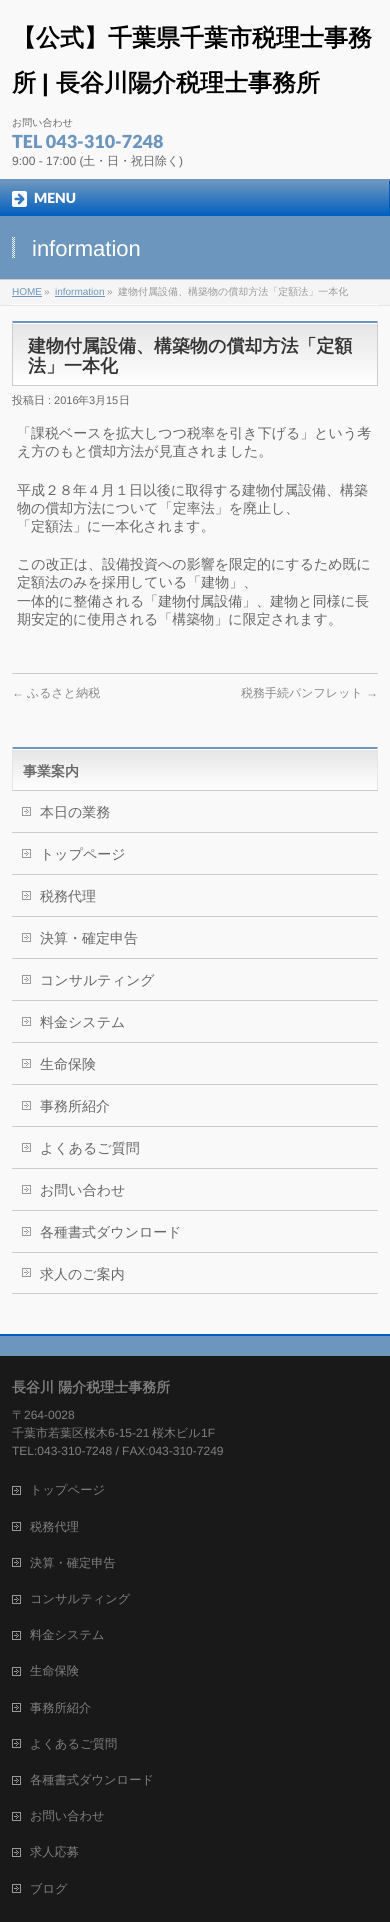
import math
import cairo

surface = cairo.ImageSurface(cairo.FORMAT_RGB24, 390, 1922)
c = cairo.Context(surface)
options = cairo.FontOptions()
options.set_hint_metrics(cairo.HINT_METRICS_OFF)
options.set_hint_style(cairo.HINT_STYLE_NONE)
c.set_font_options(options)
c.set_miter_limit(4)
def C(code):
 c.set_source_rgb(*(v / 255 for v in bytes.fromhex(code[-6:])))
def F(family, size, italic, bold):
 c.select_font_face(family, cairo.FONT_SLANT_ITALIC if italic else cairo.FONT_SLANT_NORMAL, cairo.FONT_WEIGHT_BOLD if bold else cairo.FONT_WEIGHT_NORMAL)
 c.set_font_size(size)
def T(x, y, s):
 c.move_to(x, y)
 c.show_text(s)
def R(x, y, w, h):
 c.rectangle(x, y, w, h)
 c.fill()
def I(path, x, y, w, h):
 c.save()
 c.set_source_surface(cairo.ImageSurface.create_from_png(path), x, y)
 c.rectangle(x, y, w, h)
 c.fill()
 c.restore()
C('f9f9f9')
c.paint()
F('WenQuanYi Zen Hei',24,0,1)
C('000000')
T(12,46,'【公式】千葉県千葉市税理士事務')
T(12,91,'所')
F('Liberation Sans',24,0,1)
T(42,91,'|')
F('WenQuanYi Zen Hei',24,0,1)
T(56,91,'長谷川陽介税理士事務所')
F('WenQuanYi Zen Hei Medium',10,0,0)
C('666666')
T(12,126,'お問い合わせ')
F('Lato Black',18,0,0)
C('6d96bf')
T(12,148,'TEL 043-310-7248')
F('Liberation Sans',12,0,0)
C('666666')
T(12,165,'9:00 - 17:00 (')
F('WenQuanYi Zen Hei Medium',12,0,0)
T(83,165,'土・日・祝日除く')
F('Liberation Sans',12,0,0)
T(179,165,')')
C('6d96bf')
R(0,179,390,2)
gradient = cairo.LinearGradient(195,181,195,216)
gradient.add_color_stop_rgba(0,0.427,0.588,0.749,1)
gradient.add_color_stop_rgba(1,0,0.373,0.749,1)
c.set_source(gradient)
R(0,181,389,35)
C('005fbf')
R(389,181,1,35)
I('1.png',12,191,15,16)
F('Lato Black',14,0,0)
C('ffffff')
T(34,203,'MENU')
C('6d96bf')
R(0,216,390,63)
C('cccccc')
R(0,279,390,1)
I('2.png',12,237,3,21)
F('Liberation Sans',22,0,0)
C('ffffff')
T(32,256,'information')
C('f5f5f5')
R(0,280,390,25)
C('e5e5e5')
R(0,305,390,1)
C('ffffff')
R(12,304,366,1)
F('Liberation Sans',10,0,0)
C('6d96bf')
T(12,295,'HOME')
R(12,296,30,1)
C('999999')
T(44,295,'»')
C('6d96bf')
T(55,295,'information')
R(55,296,50,1)
C('999999')
T(107,295,'»')
F('WenQuanYi Zen Hei Medium',10,0,0)
T(118,295,'建物付属設備、構築物の償却方法「定額法」一本化')
gradient = cairo.LinearGradient(13,323,13,385)
gradient.add_color_stop_rgba(0,0.898,0.898,0.898,1)
gradient.add_color_stop_rgba(1,1,1,1,1)
c.set_source(gradient)
R(13,324,364,61)
C('ffffff')
R(13,323,364,1)
C('6d96bf')
c.new_path()
c.move_to(12,321)
c.line_to(378,321)
c.line_to(377,323)
c.line_to(13,323)
c.close_path()
c.fill()
C('cccccc')
c.new_path()
c.move_to(378,321)
c.line_to(378,386)
c.line_to(377,385)
c.line_to(377,323)
c.close_path()
c.fill()
R(12,385,366,1)
c.new_path()
c.move_to(12,386)
c.line_to(12,321)
c.line_to(13,323)
c.line_to(13,385)
c.close_path()
c.fill()
F('WenQuanYi Zen Hei',18,0,1)
C('333333')
T(28,352,'建物付属設備、構築物の償却方法「定額')
T(28,372,'法」一本化')
F('WenQuanYi Zen Hei Medium',11,0,0)
C('666666')
T(12,404,'投稿日')
F('Liberation Sans',11,0,0)
T(48,404,': 2016')
F('WenQuanYi Zen Hei Medium',11,0,0)
T(78,404,'年')
F('Liberation Sans',11,0,0)
T(89,404,'3')
F('WenQuanYi Zen Hei Medium',11,0,0)
T(95,404,'月')
F('Liberation Sans',11,0,0)
T(106,404,'15')
F('WenQuanYi Zen Hei Medium',11,0,0)
T(119,404,'日')
F('WenQuanYi Zen Hei Medium',14,0,0)
T(17,438,'「課税ベースを拡大しつつ税率を引き下げる」という考')
T(17,456,'え方のもと償却方法が見直されました。')
T(17,495,'平成２８年４月１日以後に取得する建物付属設備、構築')
T(17,513,'物の償却方法について「定率法」を廃止し、')
T(17,531,'「定額法」に一本化されます。')
T(17,569,'この改正は、設備投資への影響を限定的にするため既に')
T(17,587,'定額法のみを採用している「建物」、')
T(17,606,'一体的に整備される「建物付属設備」、建物と同様に長')
T(17,624,'期安定的に使用される「構築物」に限定されます。')
C('cccccc')
R(12,673,366,1)
F('Liberation Sans',12,0,0)
C('888888')
T(12,697,'←')
F('WenQuanYi Zen Hei Medium',12,0,0)
T(27,697,'ふるさと納税')
T(241,697,'税務手続パンフレット')
F('Liberation Sans',12,0,0)
T(366,697,'→')
gradient = cairo.LinearGradient(13,749,13,790)
gradient.add_color_stop_rgba(0,0.898,0.898,0.898,1)
gradient.add_color_stop_rgba(1,1,1,1,1)
c.set_source(gradient)
R(13,750,364,40)
C('ffffff')
R(13,749,364,1)
C('6d96bf')
c.new_path()
c.move_to(12,747)
c.line_to(378,747)
c.line_to(377,749)
c.line_to(13,749)
c.close_path()
c.fill()
C('e5e5e5')
c.new_path()
c.move_to(378,747)
c.line_to(378,791)
c.line_to(377,790)
c.line_to(377,749)
c.close_path()
c.fill()
C('cccccc')
R(12,790,366,1)
C('e5e5e5')
c.new_path()
c.move_to(12,791)
c.line_to(12,747)
c.line_to(13,749)
c.line_to(13,790)
c.close_path()
c.fill()
F('WenQuanYi Zen Hei',14,0,1)
C('666666')
T(23,776,'事業案内')
C('cccccc')
R(12,832,366,1)
I('3.png',22,807,9,9)
F('WenQuanYi Zen Hei Medium',14,0,0)
C('666666')
T(40,817,'本日の業務')
C('cccccc')
R(12,874,366,1)
I('3.png',22,849,9,9)
C('666666')
T(40,859,'トップページ')
C('cccccc')
R(12,916,366,1)
I('3.png',22,891,9,9)
C('666666')
T(40,901,'税務代理')
C('cccccc')
R(12,958,366,1)
I('3.png',22,933,9,9)
C('666666')
T(40,943,'決算・確定申告')
C('cccccc')
R(12,1000,366,1)
I('3.png',22,975,9,9)
C('666666')
T(40,985,'コンサルティング')
C('cccccc')
R(12,1042,366,1)
I('3.png',22,1017,9,9)
C('666666')
T(40,1027,'料金システム')
C('cccccc')
R(12,1084,366,1)
I('3.png',22,1059,9,9)
C('666666')
T(40,1069,'生命保険')
C('cccccc')
R(12,1126,366,1)
I('3.png',22,1101,9,9)
C('666666')
T(40,1111,'事務所紹介')
C('cccccc')
R(12,1168,366,1)
I('3.png',22,1143,9,9)
C('666666')
T(40,1153,'よくあるご質問')
C('cccccc')
R(12,1210,366,1)
I('3.png',22,1185,9,9)
C('666666')
T(40,1195,'お問い合わせ')
C('cccccc')
R(12,1252,366,1)
I('3.png',22,1227,9,9)
C('666666')
T(40,1237,'各種書式ダウンロード')
C('cccccc')
R(12,1293,366,1)
I('3.png',22,1268,9,9)
C('666666')
T(40,1279,'求人のご案内')
C('6d96bf')
R(0,1336,390,20)
C('005fbf')
R(0,1334,390,2)
C('191919')
R(0,1357,390,565)
C('151515')
R(0,1356,390,1)
F('WenQuanYi Zen Hei',14,0,1)
C('808080')
T(12,1392,'長谷川 陽介税理士事務所')
F('WenQuanYi Zen Hei Medium',12,0,0)
T(12,1419,'〒')
F('Liberation Sans',12,0,0)
T(24,1419,'264-0028')
F('WenQuanYi Zen Hei Medium',12,0,0)
T(12,1437,'千葉市若葉区桜木')
F('Liberation Sans',12,0,0)
T(108,1437,'6-15-21')
F('WenQuanYi Zen Hei Medium',12,0,0)
T(152,1437,'桜木ビル')
F('Liberation Sans',12,0,0)
T(201,1437,'1F')
T(12,1455,'TEL:043-310-7248 / FAX:043-310-7249')
I('4.png',12,1486,9,9)
F('WenQuanYi Zen Hei Medium',12.25,0,0)
T(30,1494,'トップページ')
I('4.png',12,1522,9,9)
T(30,1531,'税務代理')
I('4.png',12,1558,9,9)
T(30,1567,'決算・確定申告')
I('4.png',12,1595,9,9)
T(30,1603,'コンサルティング')
I('4.png',12,1631,9,9)
T(30,1639,'料金システム')
I('4.png',12,1667,9,9)
T(30,1675,'生命保険')
I('4.png',12,1703,9,9)
T(30,1712,'事務所紹介')
I('4.png',12,1739,9,9)
T(30,1748,'よくあるご質問')
I('4.png',12,1776,9,9)
T(30,1784,'各種書式ダウンロード')
I('4.png',12,1812,9,9)
T(30,1820,'お問い合わせ')
I('4.png',12,1848,9,9)
T(30,1856,'求人応募')
I('4.png',12,1884,9,9)
T(30,1893,'ブログ')
surface.write_to_png('o.png')
